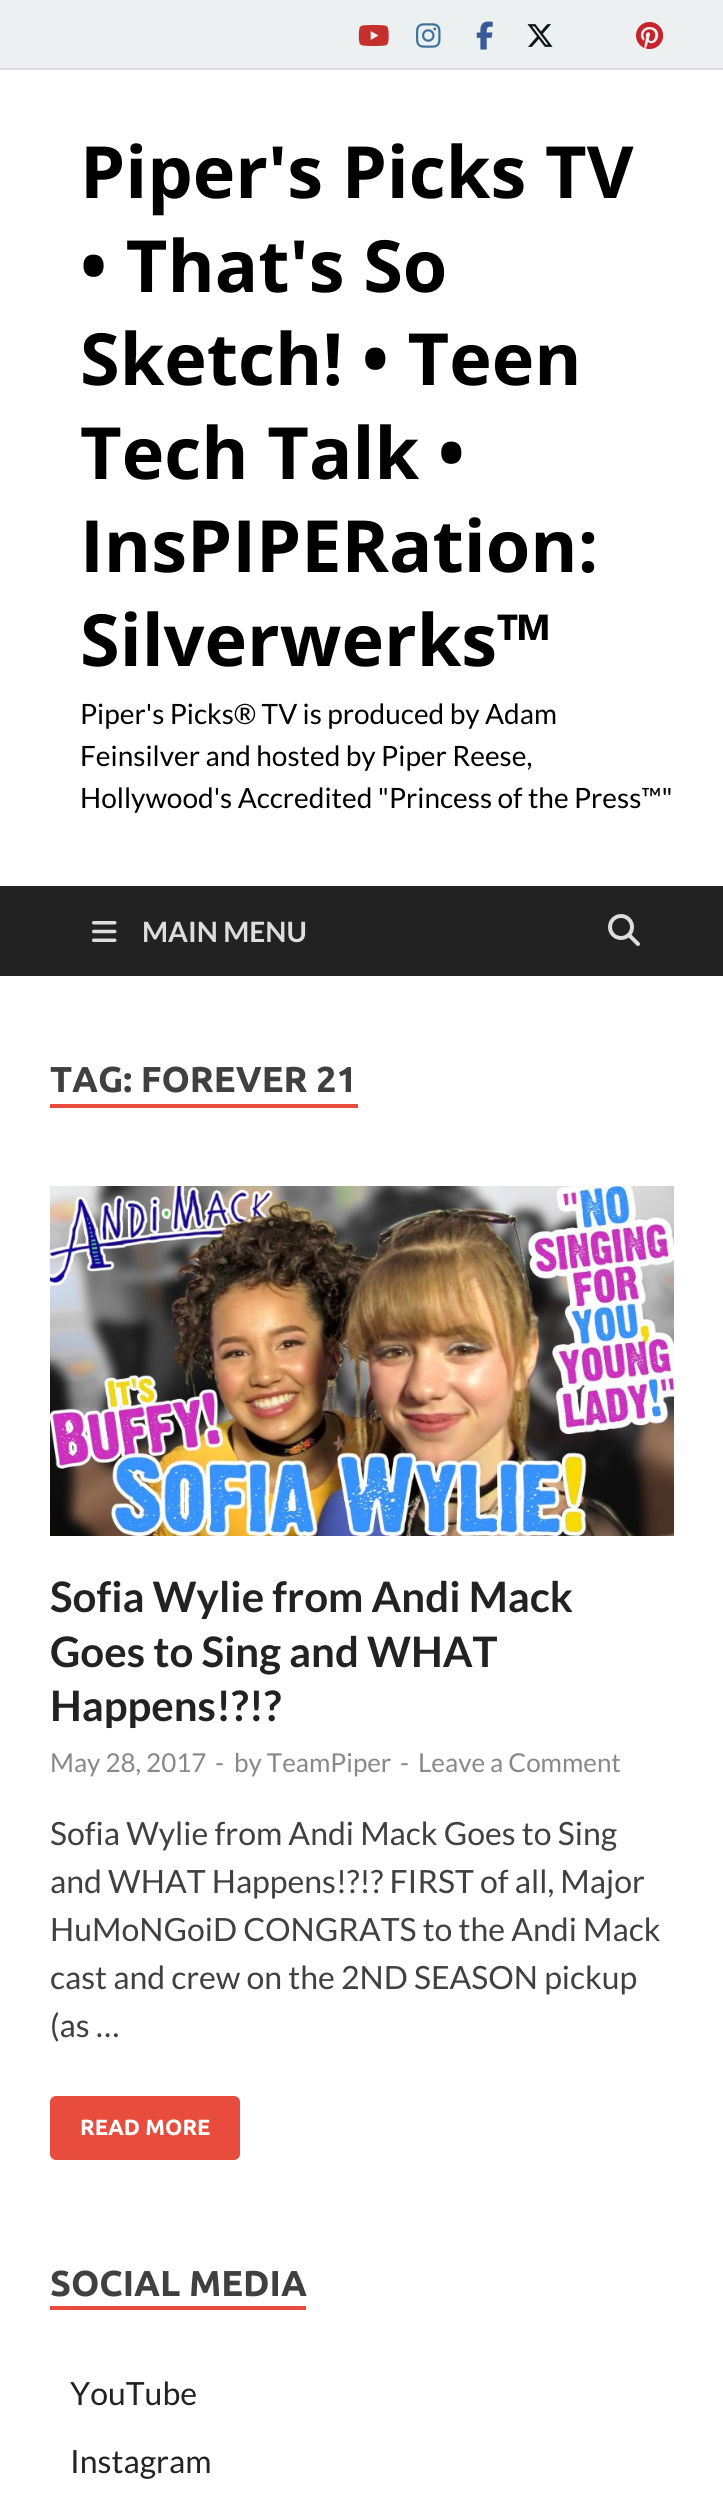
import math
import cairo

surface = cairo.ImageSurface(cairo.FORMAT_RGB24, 723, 2494)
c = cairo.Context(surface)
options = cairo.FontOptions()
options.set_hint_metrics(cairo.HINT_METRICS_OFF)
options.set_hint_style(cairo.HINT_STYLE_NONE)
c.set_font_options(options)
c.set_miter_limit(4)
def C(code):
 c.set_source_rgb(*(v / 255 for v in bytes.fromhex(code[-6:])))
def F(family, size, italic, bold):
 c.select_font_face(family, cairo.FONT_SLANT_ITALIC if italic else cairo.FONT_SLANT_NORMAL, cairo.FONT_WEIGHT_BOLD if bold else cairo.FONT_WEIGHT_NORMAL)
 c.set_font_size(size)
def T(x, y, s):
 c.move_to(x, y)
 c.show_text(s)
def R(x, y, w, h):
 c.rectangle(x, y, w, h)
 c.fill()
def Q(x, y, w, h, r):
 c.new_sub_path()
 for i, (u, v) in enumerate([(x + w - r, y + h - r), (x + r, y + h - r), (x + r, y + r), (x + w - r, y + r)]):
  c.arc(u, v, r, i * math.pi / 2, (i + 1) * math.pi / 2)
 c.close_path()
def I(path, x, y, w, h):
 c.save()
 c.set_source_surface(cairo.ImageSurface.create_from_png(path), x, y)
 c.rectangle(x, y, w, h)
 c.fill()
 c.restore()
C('ffffff')
c.paint()
C('ecf0f1')
R(0,0,723,68)
C('dddddd')
R(0,68,723,2)
I('1.png',358,25,31,21)
I('2.png',416,23,25,25)
I('3.png',476,21,17,29)
I('4.png',527,24,26,23)
I('5.png',636,21,28,29)
F('Open Sans',72,0,1)
C('000000')
T(80,198,'Piper\'s Picks TV')
T(80,292,'• That\'s So')
T(80,385,'Sketch! • Teen')
T(80,479,'Tech Talk •')
T(80,572,'InsPIPERation:')
T(80,666,'Silverwerks™')
F('Lato',28,0,0)
T(80,724,'Piper\'s Picks® TV is produced by Adam')
T(80,766,'Feinsilver and hosted by Piper Reese,')
T(80,808,'Hollywood\'s Accredited "Princess of the Press™"')
C('222222')
R(0,886,723,90)
I('6.png',92,921,25,21)
F('Lato',28,0,1)
C('dddddd')
T(142,942,'MAIN MENU')
I('7.png',608,914,32,32)
F('Ubuntu',36,0,1)
C('404040')
T(50,1092,'TAG: FOREVER 21')
C('e74c3c')
R(50,1104,308,4)
I('8.png',50,1186,624,350)
F('Lato',42,0,1)
C('222222')
T(50,1612,'Sofia Wylie from Andi Mack')
T(50,1667,'Goes to Sing and WHAT')
T(50,1721,'Happens!?!?')
F('Lato',26,0,0)
C('888888')
T(50,1772,'May 28, 2017')
T(215,1772,'-')
T(234,1772,'by TeamPiper')
T(400,1772,'-')
T(418,1772,'Leave a Comment')
F('Lato',32,0,0)
C('404040')
T(50,1845,'Sofia Wylie from Andi Mack Goes to Sing')
T(50,1893,'and WHAT Happens!?!? FIRST of all, Major')
T(50,1941,'HuMoNGoiD CONGRATS to the Andi Mack')
T(50,1989,'cast and crew on the 2ND SEASON pickup')
T(50,2037,'(as …')
C('e74c3c')
Q(50,2096,190,64,6)
c.fill()
F('Ubuntu',22,0,1)
C('ffffff')
T(80,2135,'READ MORE')
C('e74c3c')
R(50,2306,256,4)
F('Ubuntu',36,0,1)
C('404040')
T(50,2296,'SOCIAL MEDIA')
F('Lato',32,0,0)
C('222222')
T(70,2405,'YouTube')
T(70,2473,'Instagram')
surface.write_to_png('o.png')
